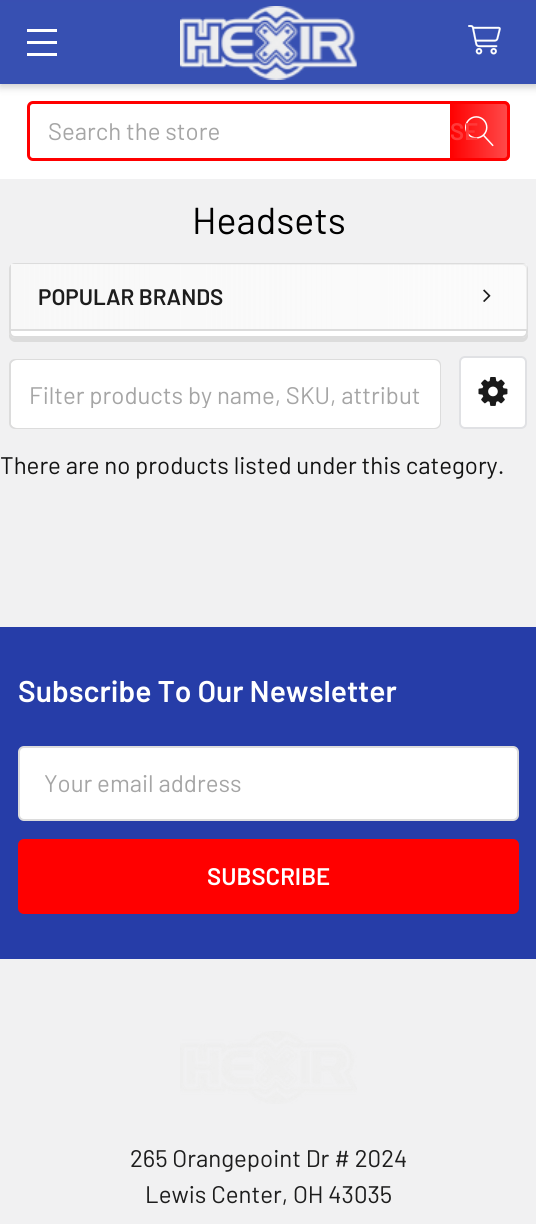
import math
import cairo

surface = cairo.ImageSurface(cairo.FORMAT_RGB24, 536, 1224)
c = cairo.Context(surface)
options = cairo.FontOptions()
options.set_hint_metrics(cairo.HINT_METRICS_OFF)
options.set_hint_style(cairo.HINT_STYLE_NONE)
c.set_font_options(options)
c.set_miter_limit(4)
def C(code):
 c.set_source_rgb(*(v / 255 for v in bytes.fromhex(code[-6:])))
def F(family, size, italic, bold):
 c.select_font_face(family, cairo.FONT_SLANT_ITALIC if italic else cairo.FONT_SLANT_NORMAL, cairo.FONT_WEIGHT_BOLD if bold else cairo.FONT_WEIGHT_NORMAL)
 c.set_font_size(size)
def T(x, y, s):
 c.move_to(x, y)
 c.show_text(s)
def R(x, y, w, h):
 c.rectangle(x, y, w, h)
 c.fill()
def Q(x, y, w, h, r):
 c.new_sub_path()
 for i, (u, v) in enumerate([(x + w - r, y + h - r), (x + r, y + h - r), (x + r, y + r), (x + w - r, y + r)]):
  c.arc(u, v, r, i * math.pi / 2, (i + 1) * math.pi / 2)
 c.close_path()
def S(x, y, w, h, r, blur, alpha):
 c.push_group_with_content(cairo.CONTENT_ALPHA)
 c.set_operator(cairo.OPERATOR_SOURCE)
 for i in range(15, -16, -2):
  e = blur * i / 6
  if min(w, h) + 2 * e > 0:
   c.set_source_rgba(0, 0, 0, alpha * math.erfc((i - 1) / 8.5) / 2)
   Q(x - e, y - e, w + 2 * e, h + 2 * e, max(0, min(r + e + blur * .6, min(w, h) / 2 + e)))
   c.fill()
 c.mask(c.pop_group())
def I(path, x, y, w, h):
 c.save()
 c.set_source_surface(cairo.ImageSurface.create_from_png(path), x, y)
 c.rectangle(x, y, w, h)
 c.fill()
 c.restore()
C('f1f1f2')
c.paint()
C('ffffff')
R(0,84,536,95)
C('000000')
S(0,3,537,84,0,4,.2)
C('3750b2')
R(0,2,536,82)
C('384fb2')
R(0,0,536,2)
C('ffffff')
R(27,41,30,3)
R(27,29,30,3)
R(27,53,30,3)
I('1.png',180,6,177,74)
I('2.png',468,25,33,30)
Q(28.5,102.5,480,57,4.5)
C('ff0000')
c.set_line_width(3)
c.stroke()
F('Barlow',24,0,0)
C('a5a5a5')
T(48,140,'Search the store')
gradient = cairo.LinearGradient(450,131,510,131)
gradient.add_color_stop_rgba(0,1,0,0,1)
gradient.add_color_stop_rgba(1,1,0,0,.7)
c.set_source(gradient)
c.new_path()
c.move_to(450,101)
c.line_to(504,101)
c.curve_to(507.5,101,510,103.5,510,107)
c.line_to(510,155)
c.curve_to(510,158.5,507.5,161,504,161)
c.line_to(450,161)
c.close_path()
c.fill()
I('3.png',465,116,29,31)
F('Barlow SemiBold',24,0,0)
C('ff3939')
T(450,140,'SE')
F('Barlow',37.5,0,0)
C('000000')
T(192,234,'Headsets')
C('dcdcdc')
c.new_path()
c.move_to(9,332)
c.line_to(9,336)
c.curve_to(9,339,12,342,15,342)
c.line_to(522,342)
c.curve_to(525,342,528,339,528,336)
c.line_to(528,332)
c.curve_to(528,335,525,338,522,338)
c.line_to(15,338)
c.curve_to(12,338,9,335,9,332)
c.close_path()
c.fill()
C('ffffff')
Q(10,264,517,73,5)
c.fill_preserve()
C('dcdcdc')
c.set_line_width(2)
c.stroke()
gradient = cairo.LinearGradient(11,296,527,296)
gradient.add_color_stop_rgba(0,0.973,0.973,0.973,1)
gradient.add_color_stop_rgba(1,0.973,0.973,0.973,.6)
c.set_source(gradient)
R(11,264,516,65)
C('dcdcdc')
R(11,329,516,2)
F('Barlow SemiBold',22.5,0,0)
C('1d1d1d')
T(38,305,'POPULAR BRANDS')
I('4.png',483,289,8,13)
C('ffffff')
Q(460,357,66,71,5)
c.fill_preserve()
C('e0e1e4')
c.stroke()
I('5.png',478,377,30,29)
C('ffffff')
Q(10,360,430,68,5)
c.fill_preserve()
C('dcdcdc')
c.stroke()
C('ffffff')
Q(11,360,429,68,6)
c.fill()
c.save()
c.rectangle(29,380,393,28)
c.clip()
F('Barlow',24,0,0)
C('a5a5a5')
T(29,404,'Filter products by name, SKU, attribut')
c.restore()
F('Barlow',24,0,0)
C('131313')
T(0,474,'There are no products listed under this category.')
C('263da8')
R(0,627,536,332)
F('Barlow SemiBold',30,0,0)
C('ffffff')
T(18,702,'Subscribe To Our Newsletter')
Q(19,747,499,73,5)
c.fill_preserve()
C('dcdcdc')
c.stroke()
F('Barlow',24,0,0)
C('a5a5a5')
T(44,792,'Your email address')
C('ff0000')
Q(19,840,499,73,5)
c.fill_preserve()
c.stroke()
F('Barlow SemiBold',24,0,0)
C('ffffff')
T(207,885,'SUBSCRIBE')
I('6.png',180,1031,177,73)
F('Barlow',24,0,0)
C('1d1d1d')
T(130,1167,'265 Orangepoint Dr # 2024')
T(145,1203,'Lewis Center, OH 43035')
surface.write_to_png('o.png')
